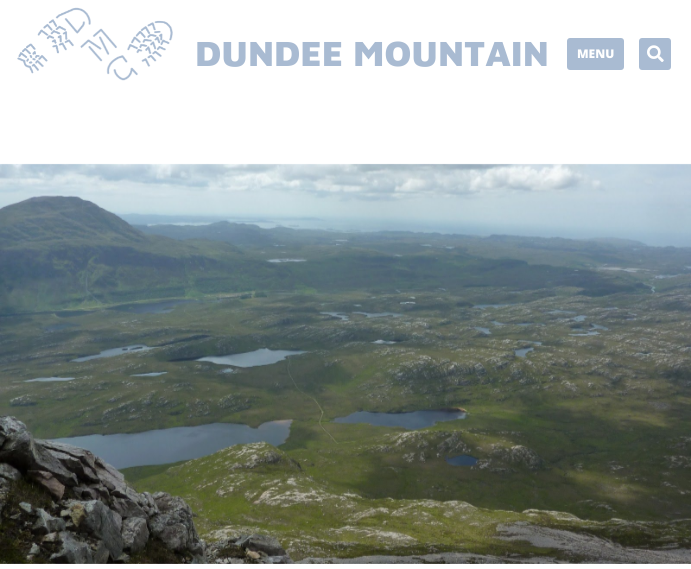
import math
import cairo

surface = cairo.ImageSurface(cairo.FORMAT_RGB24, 691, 569)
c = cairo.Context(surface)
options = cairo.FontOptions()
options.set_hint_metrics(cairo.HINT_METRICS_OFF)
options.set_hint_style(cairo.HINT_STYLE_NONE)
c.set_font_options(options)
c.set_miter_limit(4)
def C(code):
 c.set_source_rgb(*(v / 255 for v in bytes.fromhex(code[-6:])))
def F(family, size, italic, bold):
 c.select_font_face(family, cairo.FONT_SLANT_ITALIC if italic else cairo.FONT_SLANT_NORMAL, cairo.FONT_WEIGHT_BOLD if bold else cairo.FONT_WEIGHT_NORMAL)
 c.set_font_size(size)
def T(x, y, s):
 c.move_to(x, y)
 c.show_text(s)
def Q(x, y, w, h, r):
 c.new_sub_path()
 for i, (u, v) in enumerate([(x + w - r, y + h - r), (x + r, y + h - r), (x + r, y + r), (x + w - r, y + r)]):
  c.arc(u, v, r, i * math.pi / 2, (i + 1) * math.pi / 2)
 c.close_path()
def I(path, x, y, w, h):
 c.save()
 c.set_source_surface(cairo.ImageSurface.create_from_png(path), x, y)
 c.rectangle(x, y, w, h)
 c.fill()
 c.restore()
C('ffffff')
c.paint()
I('1.png',17,7,156,74)
F('Maven Pro Black',36,0,0)
C('a9bbd2')
T(195,66,'DUNDEE MOUNTAIN')
Q(567,38,57,32,3)
c.fill()
F('Open Sans ExtraBold',12,0,0)
C('ffffff')
T(577,58,'MENU')
C('a9bbd2')
Q(639,38,32,32,3)
c.fill()
I('2.png',647,45,17,17)
I('3.png',0,163,691,401)
surface.write_to_png('o.png')
